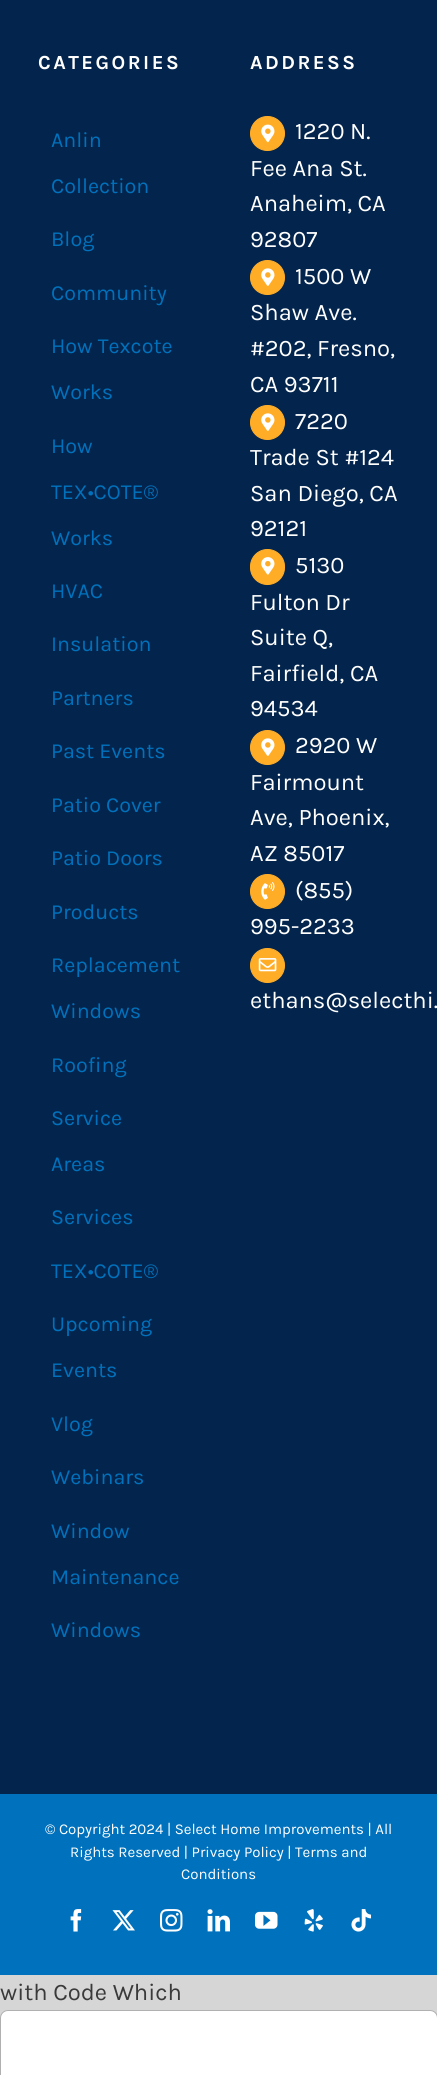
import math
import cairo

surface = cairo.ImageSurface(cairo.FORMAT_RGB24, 437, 2075)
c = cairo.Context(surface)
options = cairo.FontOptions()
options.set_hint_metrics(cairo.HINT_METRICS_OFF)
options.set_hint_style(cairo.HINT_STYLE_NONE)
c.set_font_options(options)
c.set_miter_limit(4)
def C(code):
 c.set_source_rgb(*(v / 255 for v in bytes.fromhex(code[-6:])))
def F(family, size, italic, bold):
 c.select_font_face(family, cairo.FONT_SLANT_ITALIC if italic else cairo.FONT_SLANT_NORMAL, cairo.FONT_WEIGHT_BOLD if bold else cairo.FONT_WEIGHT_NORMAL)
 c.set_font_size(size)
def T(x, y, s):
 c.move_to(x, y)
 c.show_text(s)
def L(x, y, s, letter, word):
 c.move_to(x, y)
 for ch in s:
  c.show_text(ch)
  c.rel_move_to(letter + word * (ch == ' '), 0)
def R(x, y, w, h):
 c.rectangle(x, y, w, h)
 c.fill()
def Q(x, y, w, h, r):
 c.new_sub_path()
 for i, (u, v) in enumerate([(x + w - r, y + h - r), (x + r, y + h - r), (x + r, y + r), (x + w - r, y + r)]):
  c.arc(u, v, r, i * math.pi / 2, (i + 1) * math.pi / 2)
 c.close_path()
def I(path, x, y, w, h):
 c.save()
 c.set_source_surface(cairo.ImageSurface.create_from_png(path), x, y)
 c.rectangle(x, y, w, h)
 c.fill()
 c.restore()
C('d7d6d6')
c.paint()
C('03244c')
R(0,0,437,1794)
F('Karla',20,0,1)
C('ffffff')
L(38,69,'CATEGORIES',2.5,0)
F('Karla',21.5,0,0)
C('0071bc')
T(51,147,'Anlin')
T(51,193,'Collection')
T(51,246,'Blog')
T(51,300,'Community')
T(51,353,'How Texcote')
T(51,399,'Works')
T(51,453,'How')
T(51,499,'TEX•COTE®')
T(51,545,'Works')
T(51,598,'HVAC')
T(51,651,'Insulation')
T(51,705,'Partners')
T(51,758,'Past Events')
T(51,812,'Patio Cover')
T(51,865,'Patio Doors')
T(51,919,'Products')
T(51,972,'Replacement')
T(51,1018,'Windows')
T(51,1072,'Roofing')
T(51,1125,'Service')
T(51,1171,'Areas')
T(51,1224,'Services')
T(51,1278,'TEX•COTE®')
T(51,1331,'Upcoming')
T(51,1377,'Events')
T(51,1431,'Vlog')
T(51,1484,'Webinars')
T(51,1538,'Window')
T(51,1584,'Maintenance')
T(51,1637,'Windows')
F('Karla',20,0,1)
C('ffffff')
L(250,69,'ADDRESS',2.5,0)
C('ffad27')
c.new_path()
c.arc(267.5,133.5,17,0,2 * math.pi)
c.fill_preserve()
c.set_line_width(1)
c.stroke()
I('1.png',261,124,14,19)
F('Karla',23.75,0,0)
C('ffffff')
T(295,139,'1220 N.')
T(250,176,'Fee Ana St.')
T(250,211,'Anaheim, CA')
T(250,247,'92807')
C('ffad27')
c.new_path()
c.arc(267.5,277.5,17,0,2 * math.pi)
c.fill_preserve()
c.stroke()
I('2.png',261,268,14,18)
C('ffffff')
T(295,284,'1500 W')
T(250,320,'Shaw Ave.')
T(250,356,'#202, Fresno,')
T(250,392,'CA 93711')
C('ffad27')
c.new_path()
c.arc(267.5,422.5,17,0,2 * math.pi)
c.fill_preserve()
c.stroke()
I('2.png',261,413,14,18)
C('ffffff')
T(295,429,'7220')
T(250,465,'Trade St #124')
T(250,501,'San Diego, CA')
T(250,536,'92121')
C('ffad27')
Q(250.5,549.5,34,35,17)
c.fill_preserve()
c.stroke()
I('3.png',261,557,14,18)
C('ffffff')
T(295,573,'5130')
T(250,610,'Fulton Dr')
T(250,645,'Suite Q,')
T(250,681,'Fairfield, CA')
T(250,716,'94534')
C('ffad27')
c.new_path()
c.arc(267.5,747.5,17,0,2 * math.pi)
c.fill_preserve()
c.stroke()
I('2.png',261,738,14,18)
C('ffffff')
T(295,753,'2920 W')
T(250,790,'Fairmount')
T(250,825,'Ave, Phoenix,')
T(250,861,'AZ 85017')
C('ffad27')
c.new_path()
c.arc(267.5,891.5,17,0,2 * math.pi)
c.fill_preserve()
c.stroke()
I('4.png',261,882,14,18)
C('ffffff')
T(295,898,'(855)')
T(250,934,'995-2233')
C('ffad27')
c.new_path()
c.arc(267.5,965.5,17,0,2 * math.pi)
c.fill_preserve()
c.stroke()
I('5.png',258,958,19,14)
C('ffffff')
T(250,1008,'ethans@selecthi.')
C('0071bc')
R(0,1794,437,181)
F('Karla',15,0,0)
C('ffffff')
T(45,1834,'© Copyright 2024 | Select Home Improvements | All')
T(70,1857,'Rights Reserved | Privacy Policy | Terms and')
T(181,1879,'Conditions')
I('6.png',70,1909,12,23)
I('7.png',112,1910,23,21)
I('8.png',160,1909,23,23)
I('9.png',207,1909,23,23)
I('10.png',255,1911,23,18)
I('11.png',304,1909,19,23)
I('12.png',351,1909,21,23)
F('Karla',23.75,0,0)
C('3a3a3a')
T(0,2000,'with Code Which')
C('ffffff')
Q(.5,2010.5,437,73,7.5)
c.fill_preserve()
C('b0b0b0')
c.stroke()
surface.write_to_png('o.png')
